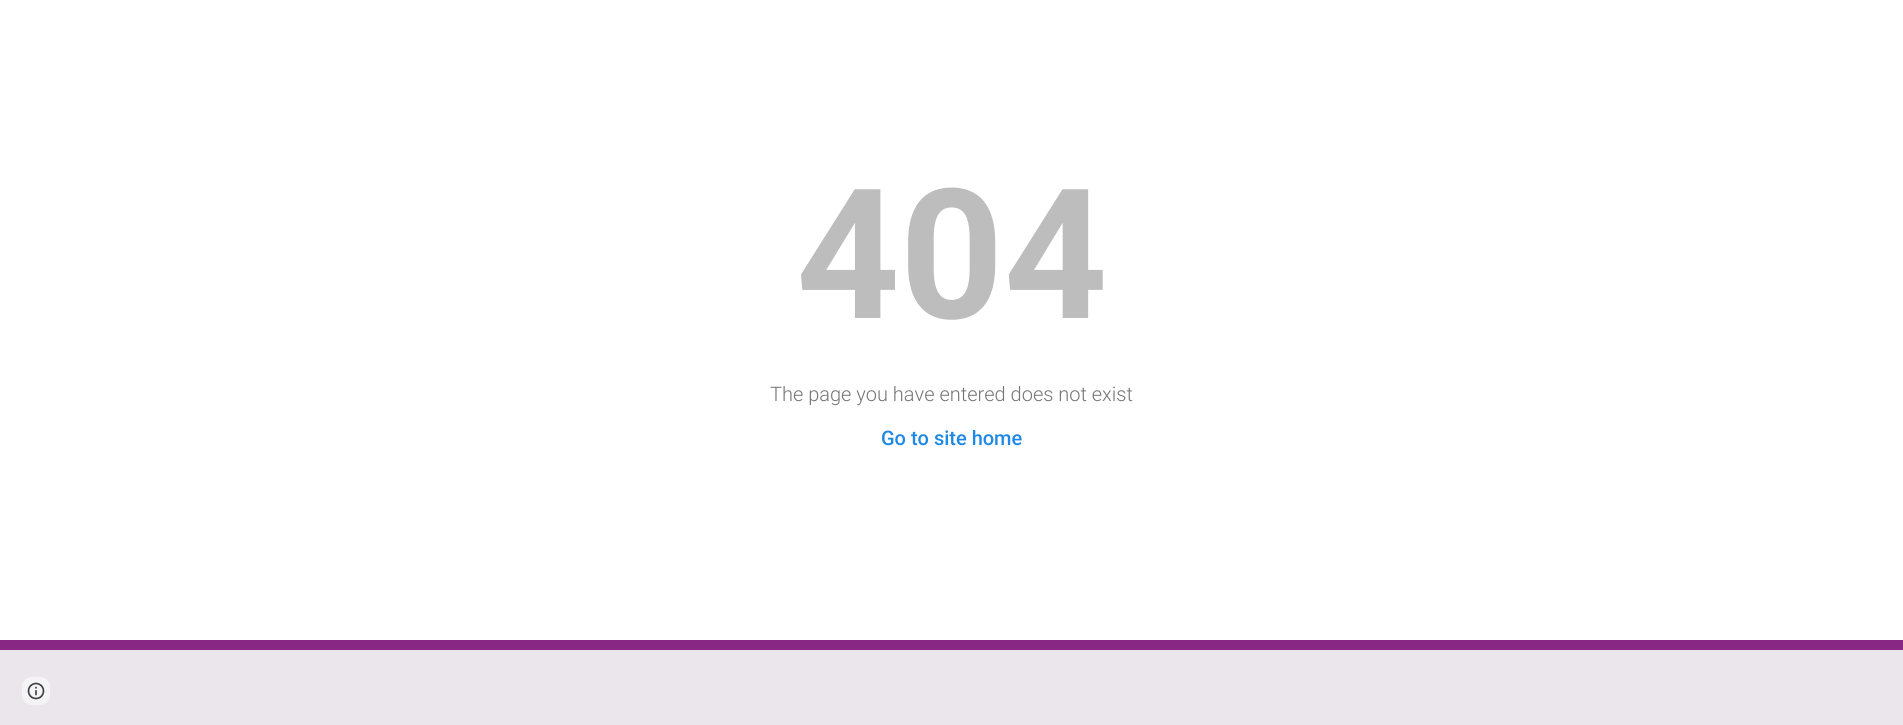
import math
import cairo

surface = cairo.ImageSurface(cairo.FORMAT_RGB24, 1903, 725)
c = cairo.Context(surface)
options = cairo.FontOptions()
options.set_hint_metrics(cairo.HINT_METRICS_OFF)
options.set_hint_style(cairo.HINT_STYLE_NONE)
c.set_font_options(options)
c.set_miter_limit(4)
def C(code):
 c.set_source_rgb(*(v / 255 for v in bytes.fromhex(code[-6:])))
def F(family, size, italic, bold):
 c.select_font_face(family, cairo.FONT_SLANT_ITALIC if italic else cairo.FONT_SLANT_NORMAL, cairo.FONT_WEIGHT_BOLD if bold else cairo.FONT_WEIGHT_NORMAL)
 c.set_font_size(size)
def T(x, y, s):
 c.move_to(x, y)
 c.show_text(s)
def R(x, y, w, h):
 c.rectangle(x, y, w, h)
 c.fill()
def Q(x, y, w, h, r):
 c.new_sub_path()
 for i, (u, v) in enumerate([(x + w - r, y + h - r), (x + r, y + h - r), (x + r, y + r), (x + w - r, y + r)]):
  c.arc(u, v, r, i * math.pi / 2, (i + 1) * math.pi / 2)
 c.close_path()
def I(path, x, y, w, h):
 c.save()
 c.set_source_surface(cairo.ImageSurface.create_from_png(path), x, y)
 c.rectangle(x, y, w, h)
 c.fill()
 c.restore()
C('ebe6eb')
c.paint()
C('ffffff')
R(0,0,1903,640)
C('882784')
R(0,640,1903,10)
F('Roboto',181,0,1)
C('bdbdbd')
T(796,318,'404')
F('Roboto Light',20,0,0)
C('757575')
T(770,401,'The page you have entered does not exist')
F('Roboto Medium',20,0,0)
C('1e88e5')
T(881,445,'Go to site home')
C('f5f3f5')
Q(22,677,28,28,10)
c.fill()
I('1.png',27,682,18,18)
surface.write_to_png('o.png')
